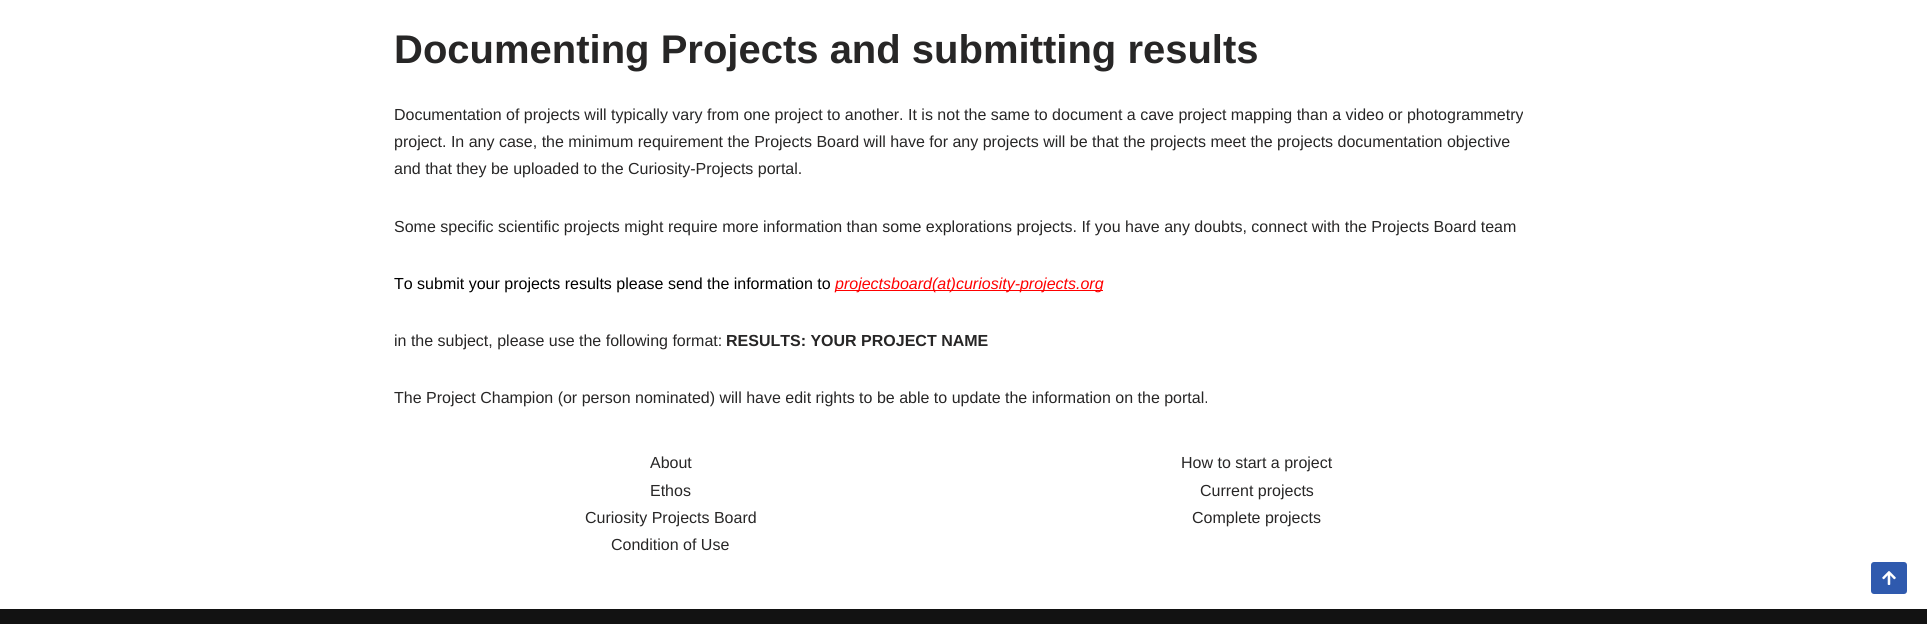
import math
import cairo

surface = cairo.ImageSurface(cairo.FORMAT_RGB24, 1927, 624)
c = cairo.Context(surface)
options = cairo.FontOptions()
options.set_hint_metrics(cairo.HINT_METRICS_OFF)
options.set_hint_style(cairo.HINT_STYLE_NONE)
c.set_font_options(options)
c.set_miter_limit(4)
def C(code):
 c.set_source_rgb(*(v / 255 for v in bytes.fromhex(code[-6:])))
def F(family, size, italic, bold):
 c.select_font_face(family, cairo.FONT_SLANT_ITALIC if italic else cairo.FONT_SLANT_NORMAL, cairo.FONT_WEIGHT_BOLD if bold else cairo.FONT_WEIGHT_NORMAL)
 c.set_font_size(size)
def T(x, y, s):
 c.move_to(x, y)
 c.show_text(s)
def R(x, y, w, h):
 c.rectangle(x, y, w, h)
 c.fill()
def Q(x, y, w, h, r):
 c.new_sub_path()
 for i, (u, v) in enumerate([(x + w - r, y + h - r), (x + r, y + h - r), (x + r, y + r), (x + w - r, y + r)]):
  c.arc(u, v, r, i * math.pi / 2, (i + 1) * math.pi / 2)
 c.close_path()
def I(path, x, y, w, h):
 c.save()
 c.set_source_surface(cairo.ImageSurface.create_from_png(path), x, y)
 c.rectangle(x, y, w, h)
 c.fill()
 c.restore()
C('ffffff')
c.paint()
F('Liberation Sans',40,0,1)
C('272626')
T(394,63,'Documenting Projects and submitting results')
F('Liberation Sans',16,0,0)
T(394,120,'Documentation of projects will typically vary from one project to another. It is not the same to document a cave project mapping than a video or photogrammetry')
T(394,147,'project. In any case, the minimum requirement the Projects Board will have for any projects will be that the projects meet the projects documentation objective')
T(394,174,'and that they be uploaded to the Curiosity-Projects portal.')
T(394,232,'Some specific scientific projects might require more information than some explorations projects. If you have any doubts, connect with the Projects Board team')
C('000000')
T(394,289,'To submit your projects results please send the information to')
C('ff0000')
R(835,290,268,1)
F('Liberation Sans',16,1,0)
T(835,289,'projectsboard(at)curiosity-projects.org')
F('Liberation Sans',16,0,0)
C('272626')
T(394,346,'in the subject, please use the following format:')
F('Liberation Sans',16,0,1)
T(726,346,'RESULTS: YOUR PROJECT NAME')
F('Liberation Sans',16,0,0)
T(394,403,'The Project Champion (or person nominated) will have edit rights to be able to update the information on the portal.')
T(650,468,'About')
T(650,496,'Ethos')
T(585,523,'Curiosity Projects Board')
T(611,550,'Condition of Use')
T(1181,468,'How to start a project')
T(1200,496,'Current projects')
T(1192,523,'Complete projects')
C('121212')
R(0,609,1927,15)
C('2f5aae')
Q(1871,562,36,32,3)
c.fill()
I('1.png',1882,571,14,14)
surface.write_to_png('o.png')
